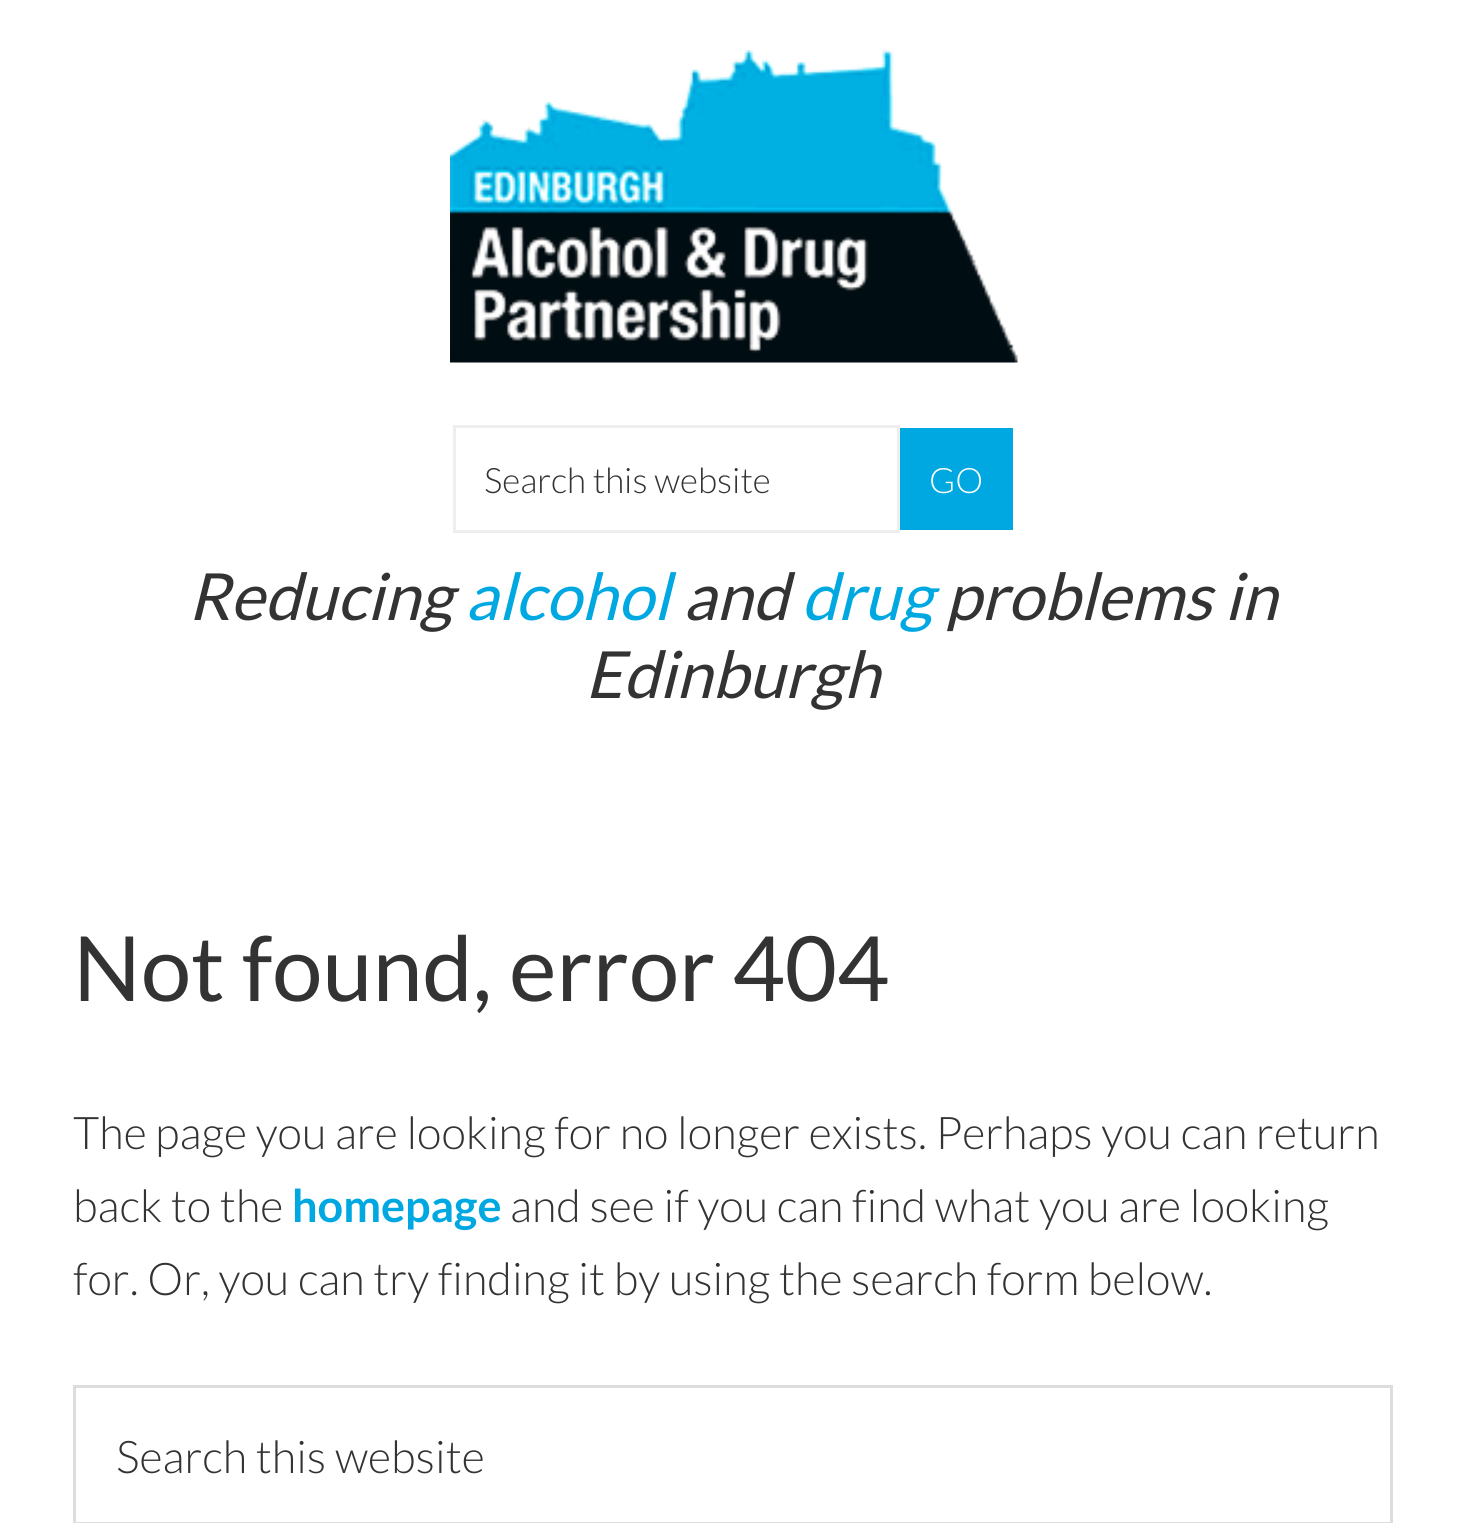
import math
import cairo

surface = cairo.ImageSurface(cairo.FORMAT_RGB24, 1465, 1523)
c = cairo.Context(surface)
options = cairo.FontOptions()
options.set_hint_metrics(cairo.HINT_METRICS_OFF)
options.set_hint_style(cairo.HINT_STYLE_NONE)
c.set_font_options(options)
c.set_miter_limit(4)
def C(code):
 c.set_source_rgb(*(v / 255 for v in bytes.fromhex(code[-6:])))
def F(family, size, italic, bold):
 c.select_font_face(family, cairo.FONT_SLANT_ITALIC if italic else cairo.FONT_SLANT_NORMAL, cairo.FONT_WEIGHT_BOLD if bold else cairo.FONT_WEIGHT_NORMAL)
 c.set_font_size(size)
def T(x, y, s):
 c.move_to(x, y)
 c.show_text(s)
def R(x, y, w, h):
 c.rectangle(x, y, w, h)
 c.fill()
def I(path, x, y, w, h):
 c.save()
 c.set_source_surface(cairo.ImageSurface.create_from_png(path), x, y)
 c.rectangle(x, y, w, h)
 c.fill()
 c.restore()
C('ffffff')
c.paint()
I('1.png',450,50,568,313)
c.rectangle(454.5,426.5,444,105)
C('eeeeee')
c.set_line_width(3)
c.stroke()
F('Lato Light',35,0,0)
C('333333')
T(484,493,'Search this website')
C('00a8e2')
R(900,428,113,102)
C('ffffff')
T(929,493,'GO')
F('Lato',65,1,0)
C('333333')
T(188,620,'Reducing')
C('00a8e2')
T(465,620,'alcohol')
C('333333')
T(683,620,'and')
C('00a8e2')
T(801,620,'drug')
C('333333')
T(945,620,'problems in')
T(585,698,'Edinburgh')
F('Lato',90,0,0)
T(73,1001,'Not found, error 404')
F('Lato Light',45,0,0)
T(73,1149,'The page you are looking for no longer exists. Perhaps you can return')
T(73,1222,'back to the')
F('Lato',45,0,1)
C('00a8e2')
T(292,1222,'homepage')
F('Lato Light',45,0,0)
C('333333')
T(510,1222,'and see if you can find what you are looking')
T(73,1295,'for. Or, you can try finding it by using the search form below.')
c.rectangle(74.5,1386.5,1317,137)
C('dddddd')
c.stroke()
C('333333')
T(116,1473,'Search this website')
surface.write_to_png('o.png')
